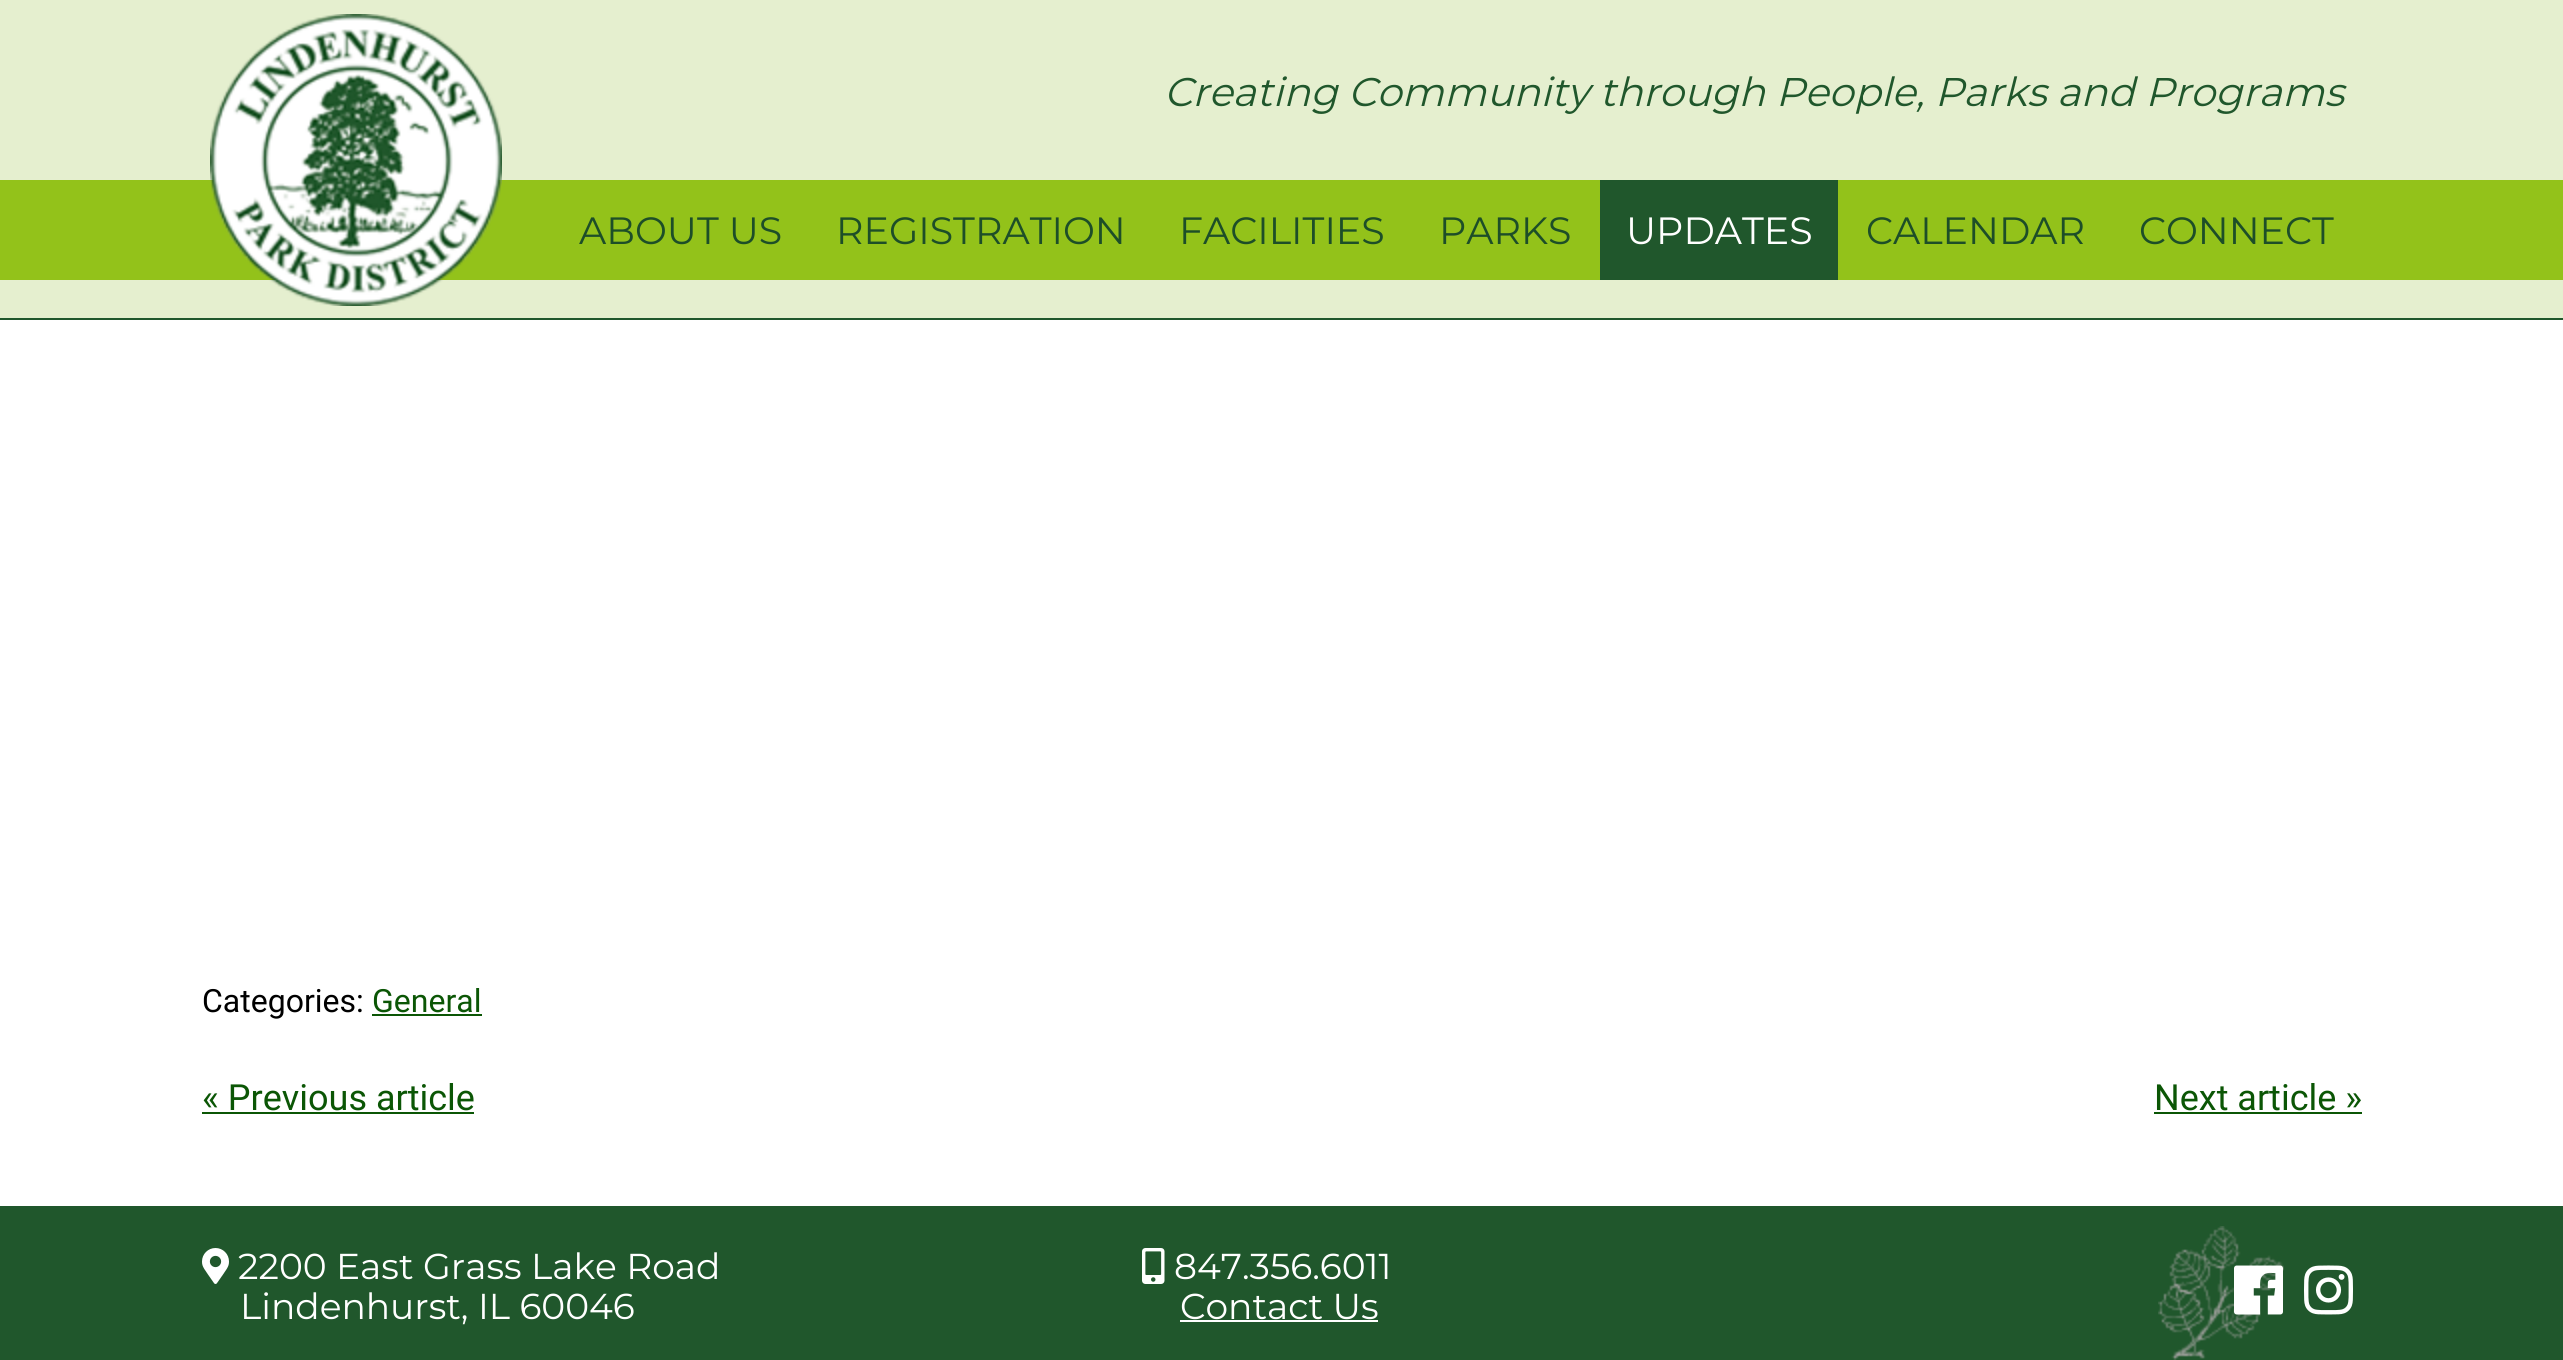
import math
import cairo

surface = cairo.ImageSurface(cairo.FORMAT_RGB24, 2563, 1360)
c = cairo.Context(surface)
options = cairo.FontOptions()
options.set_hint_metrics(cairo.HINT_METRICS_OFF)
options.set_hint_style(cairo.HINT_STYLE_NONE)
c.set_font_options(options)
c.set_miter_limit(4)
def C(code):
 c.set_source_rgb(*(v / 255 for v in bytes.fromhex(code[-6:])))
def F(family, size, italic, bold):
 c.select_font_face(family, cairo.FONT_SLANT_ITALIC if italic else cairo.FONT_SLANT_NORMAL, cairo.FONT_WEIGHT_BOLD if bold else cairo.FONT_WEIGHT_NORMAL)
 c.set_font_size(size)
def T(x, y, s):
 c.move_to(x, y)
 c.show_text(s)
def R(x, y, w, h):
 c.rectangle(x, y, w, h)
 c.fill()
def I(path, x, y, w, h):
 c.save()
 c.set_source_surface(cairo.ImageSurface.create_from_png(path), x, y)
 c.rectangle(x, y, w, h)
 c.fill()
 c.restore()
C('ffffff')
c.paint()
C('e5efcf')
R(0,0,2563,318)
C('93c21a')
R(0,180,2563,100)
C('20572c')
R(0,318,2563,2)
I('1.png',210,14,292,292)
F('Montserrat',40,1,0)
T(1164,106,'Creating Community through People, Parks and Programs')
F('Montserrat',38,0,0)
C('1d4e28')
T(579,244,'ABOUT US')
T(836,244,'REGISTRATION')
T(1179,244,'FACILITIES')
T(1439,244,'PARKS')
C('20572c')
R(1600,180,238,100)
C('ffffff')
T(1626,244,'UPDATES')
C('1d4e28')
T(1866,244,'CALENDAR')
T(2139,244,'CONNECT')
F('Roboto',32,0,0)
C('000000')
T(202,1012,'Categories:')
C('0b5605')
T(372,1012,'General')
R(372,1014,110,2)
F('Roboto',36,0,0)
T(202,1110,'« Previous article')
R(202,1112,272,2)
T(2154,1110,'Next article »')
R(2154,1112,208,2)
C('20572c')
R(0,1206,2563,154)
I('2.png',202,1248,27,36)
F('Montserrat',36,0,0)
C('ffffff')
T(238,1279,'2200 East Grass Lake Road')
T(240,1319,'Lindenhurst, IL 60046')
I('3.png',1142,1248,23,36)
T(1174,1279,'847.356.6011')
T(1180,1319,'Contact Us')
R(1180,1320,198,2)
I('4.png',2158,1226,126,134)
I('5.png',2234,1265,49,50)
I('6.png',2304,1265,49,50)
surface.write_to_png('o.png')
